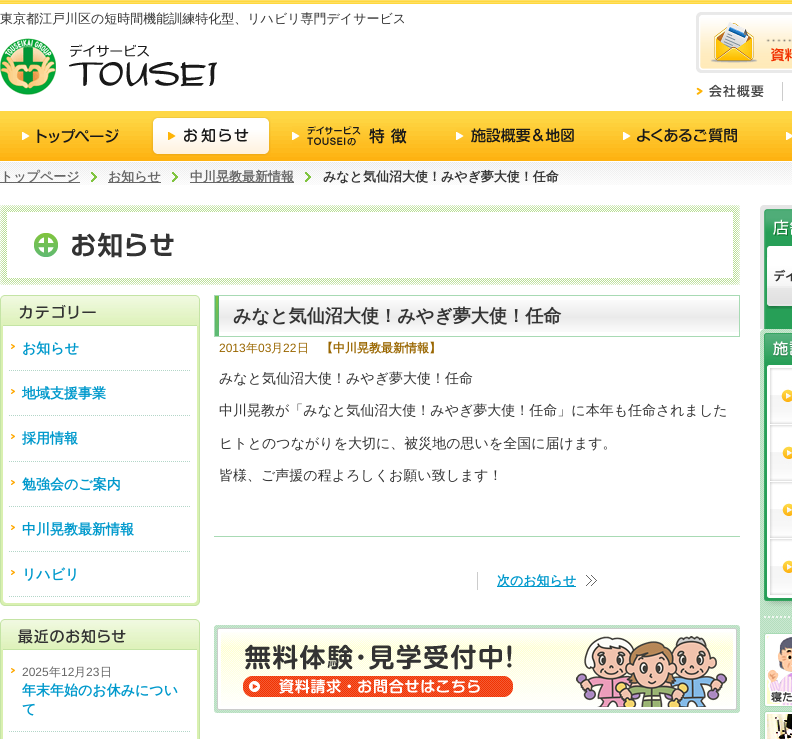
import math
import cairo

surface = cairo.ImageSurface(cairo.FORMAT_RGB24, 792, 739)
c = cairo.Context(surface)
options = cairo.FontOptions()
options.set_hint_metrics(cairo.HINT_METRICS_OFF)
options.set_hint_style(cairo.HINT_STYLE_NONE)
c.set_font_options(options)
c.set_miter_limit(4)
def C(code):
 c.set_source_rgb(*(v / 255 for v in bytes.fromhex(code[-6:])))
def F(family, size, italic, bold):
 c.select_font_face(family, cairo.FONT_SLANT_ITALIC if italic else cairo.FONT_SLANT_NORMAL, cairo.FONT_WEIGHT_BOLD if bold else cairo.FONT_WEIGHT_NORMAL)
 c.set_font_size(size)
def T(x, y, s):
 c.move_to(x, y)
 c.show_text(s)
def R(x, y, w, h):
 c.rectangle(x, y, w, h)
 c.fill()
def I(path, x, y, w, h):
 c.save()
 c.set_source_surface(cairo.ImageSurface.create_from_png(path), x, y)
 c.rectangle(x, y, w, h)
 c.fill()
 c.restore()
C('ffffff')
c.paint()
I('1.png',0,0,792,4)
F('WenQuanYi Zen Hei Medium',13,0,0)
C('333333')
T(0,23,'東京都江戸川区の短時間機能訓練特化型、リハビリ専門デイサービス')
I('2.png',696,12,96,61)
I('3.png',0,38,217,57)
I('4.png',696,82,87,19)
I('5.png',0,111,792,50)
I('6.png',22,129,97,14)
I('7.png',151,117,120,39)
I('8.png',292,126,115,20)
I('9.png',456,128,118,15)
I('10.png',623,128,114,15)
I('11.png',786,132,6,8)
I('12.png',0,162,792,23)
C('666666')
R(0,182,80,1)
F('WenQuanYi Zen Hei',13,0,1)
T(0,181,'トップページ')
I('13.png',91,172,6,10)
R(108,182,53,1)
T(108,181,'お知らせ')
I('13.png',172,172,6,10)
R(190,182,104,1)
T(190,181,'中川晃教最新情報')
I('13.png',305,172,6,10)
C('333333')
T(323,181,'みなと気仙沼大使！みやぎ夢大使！任命')
I('14.png',0,205,740,80)
I('15.png',0,295,200,31)
I('16.png',0,597,200,9)
I('17.png',0,326,200,271)
I('18.png',11,344,4,5)
c.new_path()
c.move_to(9,370.5)
c.line_to(191,370.5)
C('b3d6c8')
c.set_line_width(1)
c.set_dash([1,1])
c.stroke()
F('WenQuanYi Zen Hei',14,0,1)
C('0099cc')
T(22,353,'お知らせ')
I('18.png',11,389,4,5)
c.new_path()
c.move_to(9,415.5)
c.line_to(191,415.5)
C('b3d6c8')
c.stroke()
C('0099cc')
T(22,398,'地域支援事業')
I('18.png',11,434,4,5)
c.new_path()
c.move_to(9,461.5)
c.line_to(191,461.5)
C('b3d6c8')
c.stroke()
C('0099cc')
T(22,443,'採用情報')
I('18.png',11,480,4,5)
c.new_path()
c.move_to(9,506.5)
c.line_to(191,506.5)
C('b3d6c8')
c.stroke()
C('0099cc')
T(22,489,'勉強会のご案内')
I('18.png',11,525,4,5)
c.new_path()
c.move_to(9,551.5)
c.line_to(191,551.5)
C('b3d6c8')
c.stroke()
C('0099cc')
T(22,534,'中川晃教最新情報')
I('18.png',11,570,4,5)
c.new_path()
c.move_to(9,596.5)
c.line_to(191,596.5)
C('b3d6c8')
c.stroke()
C('0099cc')
T(22,579,'リハビリ')
I('19.png',0,619,200,31)
I('20.png',0,650,200,89)
I('18.png',11,668,4,5)
c.new_path()
c.move_to(9,731.5)
c.line_to(191,731.5)
C('b3d6c8')
c.stroke()
F('Liberation Sans',12,0,0)
C('666666')
T(22,676,'2025')
F('WenQuanYi Zen Hei Medium',12,0,0)
T(49,676,'年')
F('Liberation Sans',12,0,0)
T(61,676,'12')
F('WenQuanYi Zen Hei Medium',12,0,0)
T(74,676,'月')
F('Liberation Sans',12,0,0)
T(86,676,'23')
F('WenQuanYi Zen Hei Medium',12,0,0)
T(100,676,'日')
F('WenQuanYi Zen Hei',14,0,1)
C('0099cc')
T(22,695,'年末年始のお休みについ')
T(22,714,'て')
I('21.png',219,300,520,32)
c.rectangle(214.5,295.5,525,41)
C('a8dab4')
c.set_dash([])
c.stroke()
I('22.png',215,296,4,40)
F('WenQuanYi Zen Hei',18.1,0,1)
C('333333')
T(233,322,'みなと気仙沼大使！みやぎ夢大使！任命')
F('Liberation Sans',12,0,0)
C('996600')
T(219,352,'2013')
F('WenQuanYi Zen Hei Medium',12,0,0)
T(246,352,'年')
F('Liberation Sans',12,0,0)
T(258,352,'03')
F('WenQuanYi Zen Hei Medium',12,0,0)
T(271,352,'月')
F('Liberation Sans',12,0,0)
T(283,352,'22')
F('WenQuanYi Zen Hei Medium',12,0,0)
T(297,352,'日')
F('WenQuanYi Zen Hei',12,0,1)
T(321,352,'【中川晃教最新情報】')
C('a8dab4')
R(214,536,526,1)
F('WenQuanYi Zen Hei Medium',14,0,0)
C('333333')
T(219,383,'みなと気仙沼大使！みやぎ夢大使！任命')
T(219,415,'中川晃教が「みなと気仙沼大使！みやぎ夢大使！任命」に本年も任命されました')
T(219,448,'ヒトとのつながりを大切に、被災地の思いを全国に届けます。')
T(219,480,'皆様、ご声援の程よろしくお願い致します！')
C('cccccc')
R(477,572,1,18)
C('0099cc')
R(497,586,79,1)
F('WenQuanYi Zen Hei',13,0,1)
T(497,585,'次のお知らせ')
I('23.png',586,575,11,11)
I('24.png',214,625,526,88)
I('25.png',760,329,32,410)
I('26.png',760,205,32,124)
I('27.png',773,219,19,17)
I('28.png',767,246,25,63)
I('29.png',760,329,4,4)
I('30.png',764,333,28,274)
I('31.png',772,341,20,16)
I('32.png',770,368,22,56)
I('33.png',770,425,22,56)
I('33.png',770,482,22,56)
I('33.png',770,539,22,56)
I('34.png',764,616,28,2)
I('35.png',764,633,28,74)
I('36.png',764,711,28,28)
surface.write_to_png('o.png')
